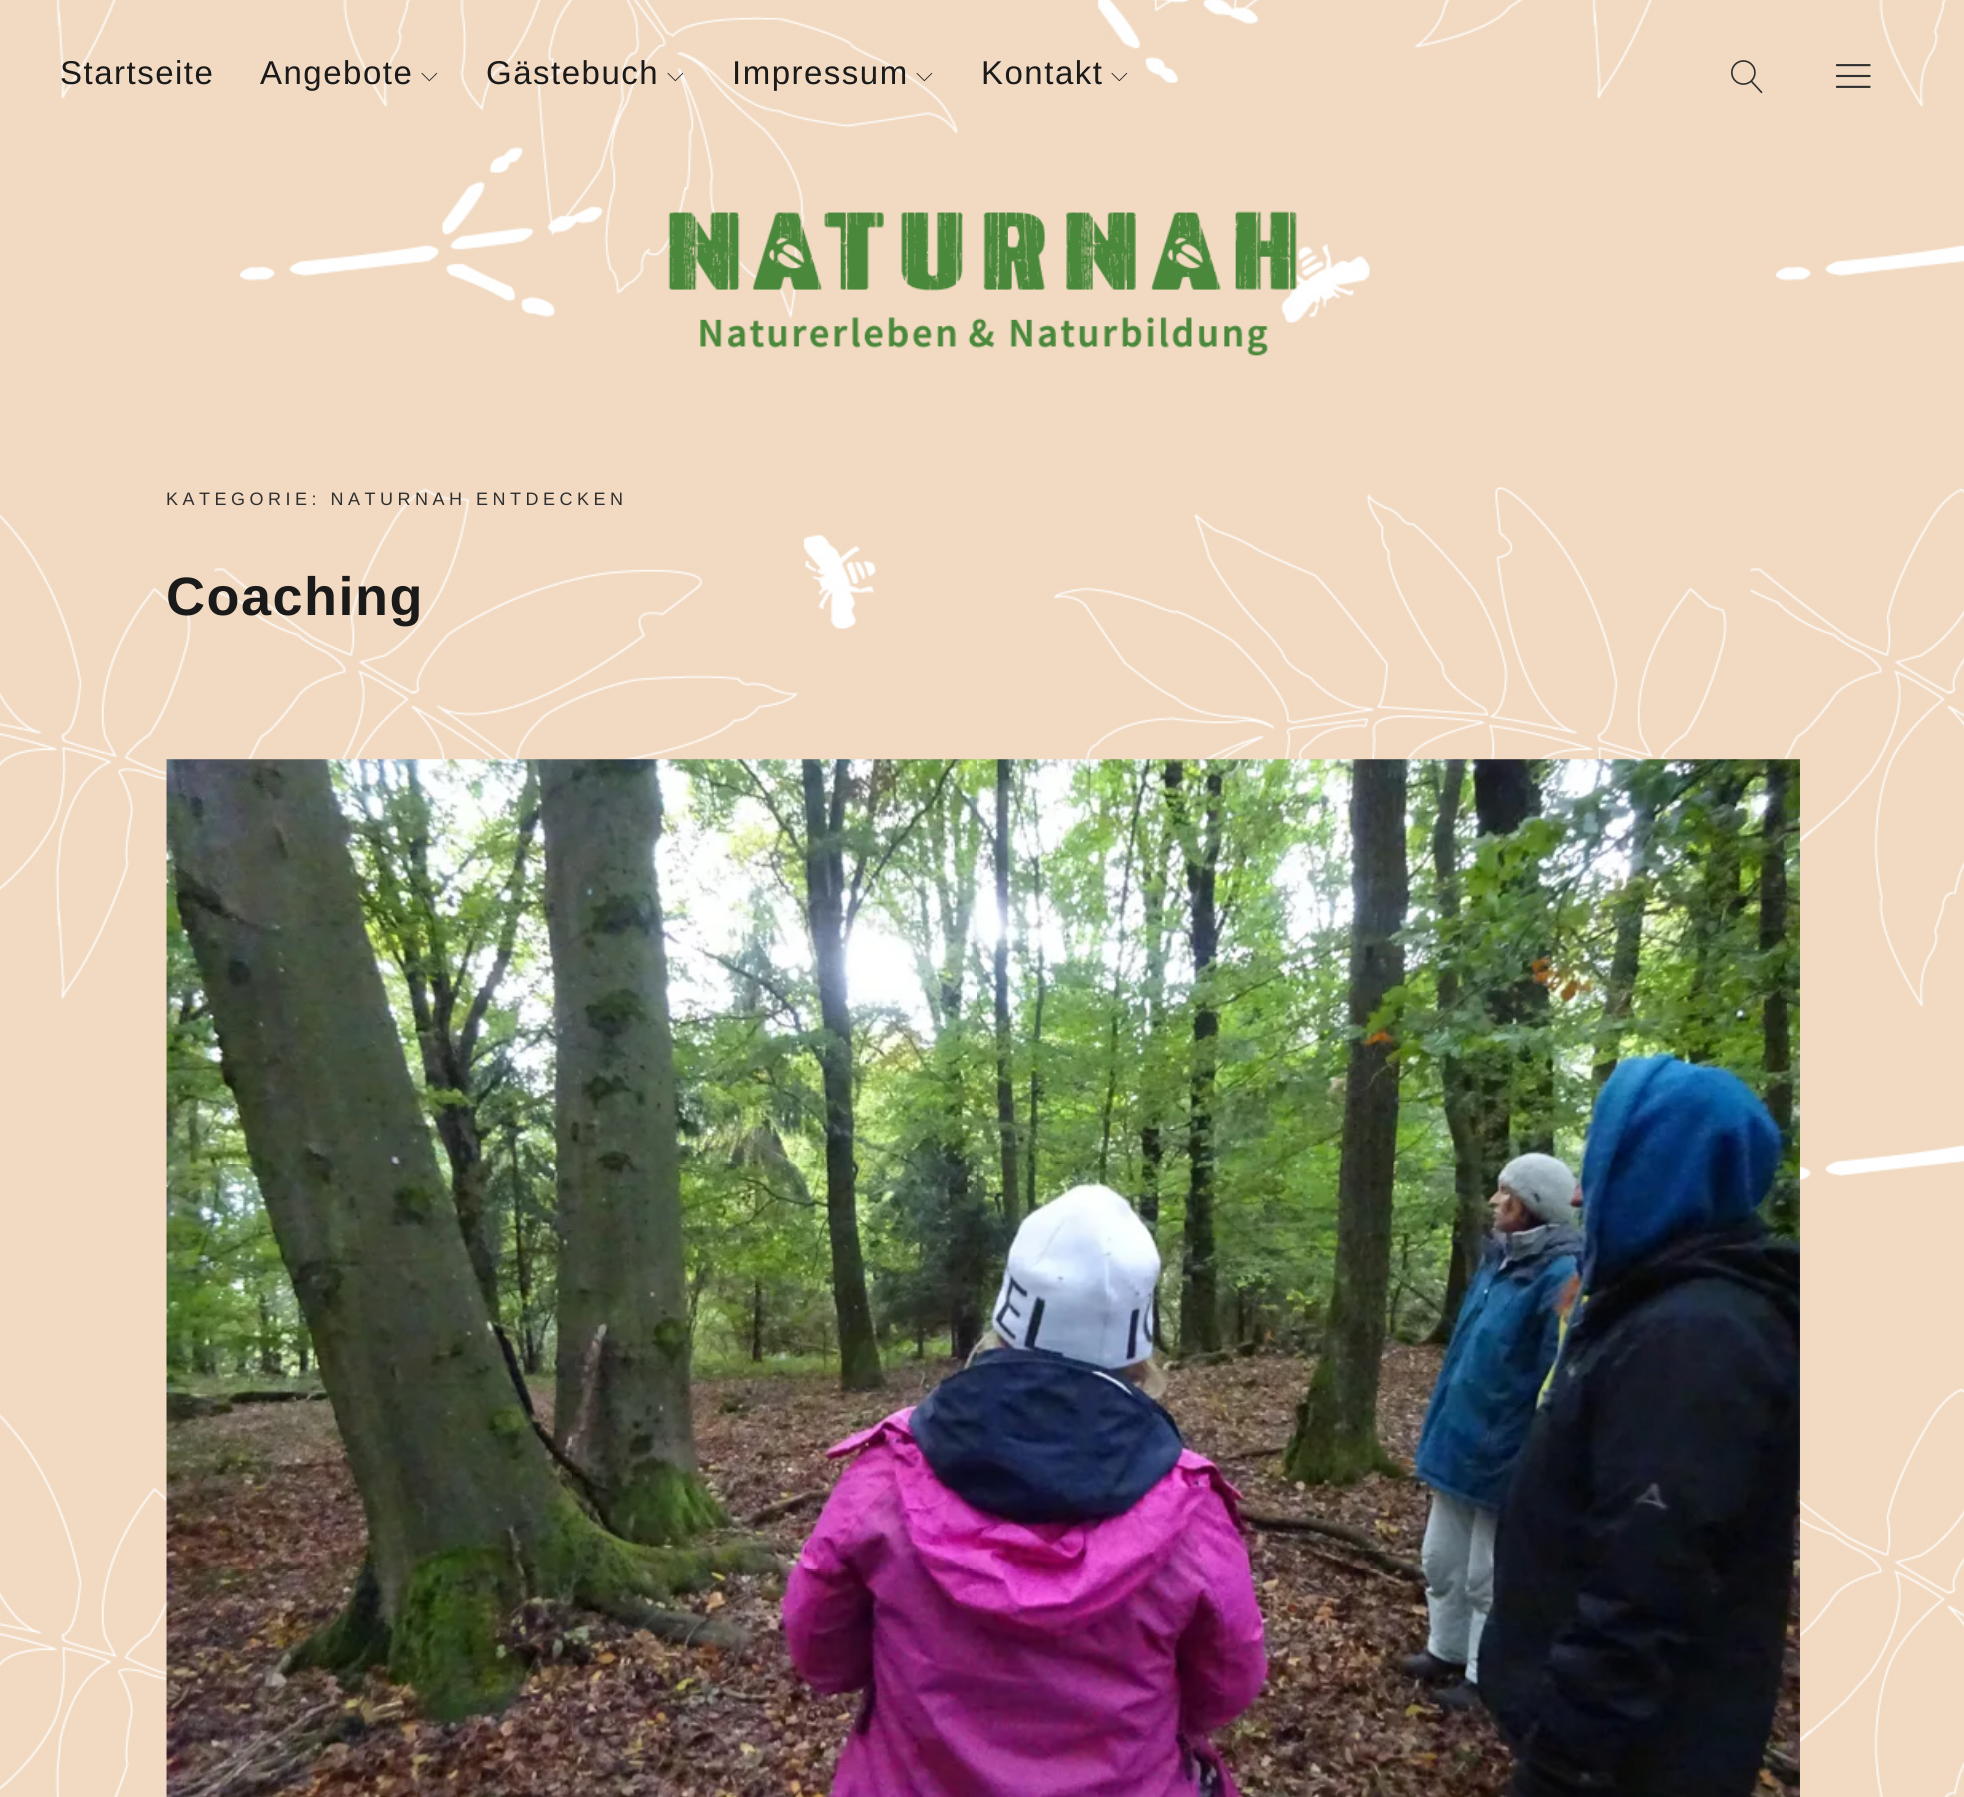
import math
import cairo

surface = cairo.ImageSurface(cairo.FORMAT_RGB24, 1964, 1797)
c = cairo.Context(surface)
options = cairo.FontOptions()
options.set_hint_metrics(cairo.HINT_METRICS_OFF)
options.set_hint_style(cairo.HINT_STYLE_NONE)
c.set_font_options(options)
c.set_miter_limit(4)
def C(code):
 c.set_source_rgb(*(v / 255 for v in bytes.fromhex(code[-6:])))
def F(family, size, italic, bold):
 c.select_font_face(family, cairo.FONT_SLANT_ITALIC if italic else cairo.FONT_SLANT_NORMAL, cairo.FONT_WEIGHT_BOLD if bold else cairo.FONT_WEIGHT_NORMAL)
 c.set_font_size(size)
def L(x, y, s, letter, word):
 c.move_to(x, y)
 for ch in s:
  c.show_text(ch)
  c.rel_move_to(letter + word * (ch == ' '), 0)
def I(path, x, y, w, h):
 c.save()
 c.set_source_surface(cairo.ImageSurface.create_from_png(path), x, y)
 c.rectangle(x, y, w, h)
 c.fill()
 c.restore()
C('ffffff')
c.paint()
I('1.png',0,0,1964,1797)
F('Liberation Sans',33,0,0)
C('1a1a1a')
L(60,84,'Startseite',1.5,0)
L(260,84,'Angebote',1.5,0)
I('2.png',421,72,17,10)
L(486,84,'Gästebuch',1.5,0)
I('3.png',667,72,17,10)
L(732,84,'Impressum',1.5,0)
I('4.png',916,72,17,10)
L(981,84,'Kontakt',1.5,0)
I('2.png',1111,72,17,10)
I('5.png',1731,60,32,34)
I('6.png',1835,64,36,24)
I('7.png',668,211,630,145)
F('Liberation Sans',18,0,0)
C('2f2f2f')
L(166,505,'KATEGORIE: NATURNAH ENTDECKEN',4.5,0)
F('Liberation Sans',54,0,1)
C('1a1a1a')
L(166,615,'Coaching',1.5,0)
I('8.png',166,759,1634,1038)
surface.write_to_png('o.png')
